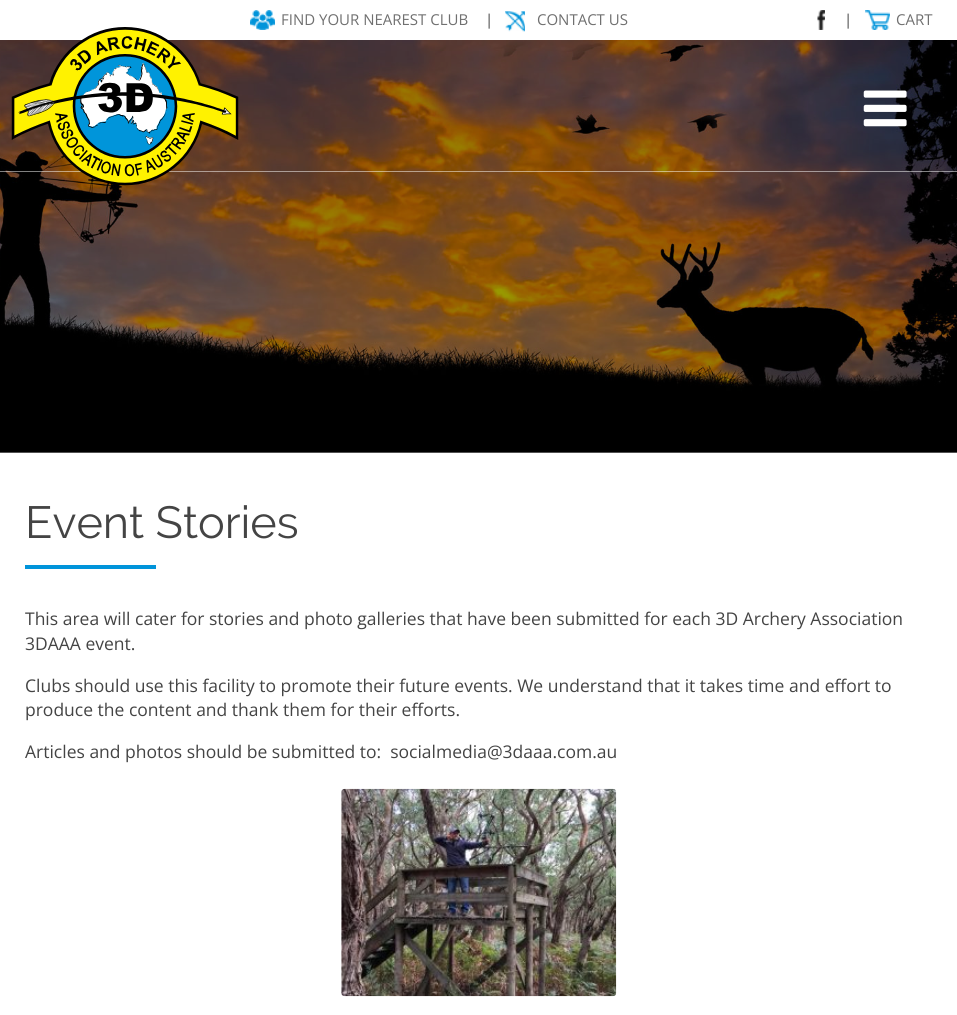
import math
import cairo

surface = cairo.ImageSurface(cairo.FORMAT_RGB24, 957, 1015)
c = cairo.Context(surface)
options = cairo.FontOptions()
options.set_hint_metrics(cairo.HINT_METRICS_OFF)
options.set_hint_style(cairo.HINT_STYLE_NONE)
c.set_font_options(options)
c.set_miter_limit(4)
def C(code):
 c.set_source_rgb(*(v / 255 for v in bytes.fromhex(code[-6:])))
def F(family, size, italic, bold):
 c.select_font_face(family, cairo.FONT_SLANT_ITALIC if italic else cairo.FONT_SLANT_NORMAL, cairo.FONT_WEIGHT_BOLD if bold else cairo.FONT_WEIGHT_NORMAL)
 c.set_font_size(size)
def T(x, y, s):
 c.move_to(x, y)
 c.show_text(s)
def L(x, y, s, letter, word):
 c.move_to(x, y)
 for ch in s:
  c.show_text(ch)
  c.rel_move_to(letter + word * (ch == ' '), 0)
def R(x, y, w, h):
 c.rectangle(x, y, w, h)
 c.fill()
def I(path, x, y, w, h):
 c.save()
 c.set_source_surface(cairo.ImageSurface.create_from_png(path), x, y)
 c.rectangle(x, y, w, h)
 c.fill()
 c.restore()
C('ffffff')
c.paint()
C('999999')
R(0,452,957,1)
I('7.png',0,40,957,413)
c.set_source_rgba(1,1,1,0.5)
R(0,171,957,1)
I('1.png',250,10,25,20)
F('Open Sans',15,0,0)
C('707070')
T(281,25,'FIND YOUR NEAREST CLUB')
C('444444')
L(485,25,'|',12,0)
I('2.png',505,11,20,21)
C('707070')
T(537,25,'CONTACT US')
I('3.png',817,10,8,20)
C('444444')
L(844,25,'|',12,0)
I('4.png',865,10,25,20)
C('707070')
T(896,25,'CART')
I('5.png',11,27,228,159)
I('6.png',863,90,44,37)
F('Raleway',45,0,0)
C('444444')
T(25,538,'Event Stories')
C('0094da')
R(25,565,131,4)
F('Open Sans',17.5,0,0)
C('444444')
T(25,625,'This area will cater for stories and photo galleries that have been submitted for each 3D Archery Association')
T(25,650,'3DAAA event.')
T(25,692,'Clubs should use this facility to promote their future events. We understand that it takes time and effort to')
T(25,716,'produce the content and thank them for their efforts.')
T(25,758,'Articles and photos should be submitted to:  socialmedia@3daaa.com.au')
I('8.png',341,788,276,209)
surface.write_to_png('o.png')
